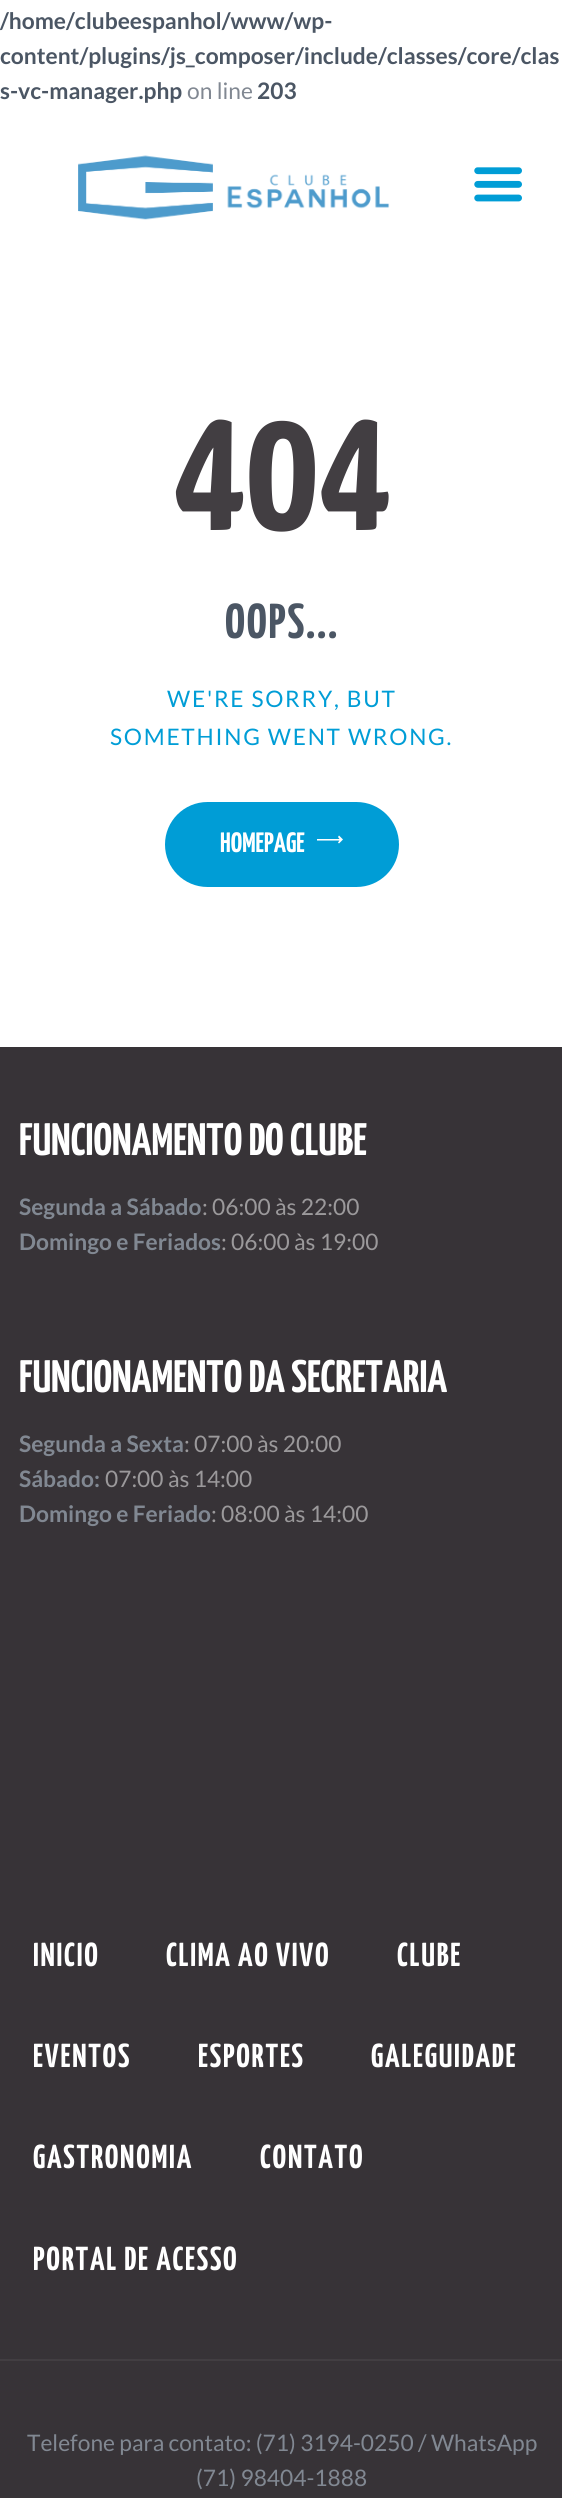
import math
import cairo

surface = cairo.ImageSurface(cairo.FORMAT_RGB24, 562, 2498)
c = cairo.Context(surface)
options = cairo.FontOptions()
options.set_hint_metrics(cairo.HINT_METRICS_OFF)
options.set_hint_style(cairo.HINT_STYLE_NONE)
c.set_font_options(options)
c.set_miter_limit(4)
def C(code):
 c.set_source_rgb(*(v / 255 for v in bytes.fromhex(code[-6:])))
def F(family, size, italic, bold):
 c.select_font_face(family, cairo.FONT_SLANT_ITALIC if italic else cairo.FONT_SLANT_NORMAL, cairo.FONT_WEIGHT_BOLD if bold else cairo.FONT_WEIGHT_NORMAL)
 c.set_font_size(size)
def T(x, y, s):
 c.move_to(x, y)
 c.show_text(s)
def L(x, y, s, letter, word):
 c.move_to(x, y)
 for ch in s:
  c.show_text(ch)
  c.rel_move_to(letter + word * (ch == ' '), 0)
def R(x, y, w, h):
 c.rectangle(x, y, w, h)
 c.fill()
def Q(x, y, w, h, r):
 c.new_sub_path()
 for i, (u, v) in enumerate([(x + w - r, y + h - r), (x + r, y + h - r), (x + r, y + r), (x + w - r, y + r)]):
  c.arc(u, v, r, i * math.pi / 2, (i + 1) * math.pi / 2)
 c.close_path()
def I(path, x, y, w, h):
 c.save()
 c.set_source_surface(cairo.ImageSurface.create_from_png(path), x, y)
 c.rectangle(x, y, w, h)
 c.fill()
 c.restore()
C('ffffff')
c.paint()
F('Lato',22.75,0,1)
C('4b5664')
T(0,29,'/home/clubeespanhol/www/wp-')
T(0,64,'content/plugins/js_composer/include/classes/core/clas')
T(0,99,'s-vc-manager.php')
F('Lato',22.75,0,0)
C('818892')
T(187,99,'on line')
F('Lato',22.75,0,1)
C('4b5664')
T(257,99,'203')
I('1.png',78,155,312,65)
I('2.png',474,167,48,35)
F('Yanone Kaffeesatz',182,0,1)
C('423e42')
T(173,530,'404')
F('Yanone Kaffeesatz',49,0,1)
C('4b5664')
L(225,638,'OOPS...',1.75,0)
F('Lato',22.75,0,0)
C('009dd6')
L(167,707,'WE\'RE SORRY, BUT',1.75,0)
L(110,745,'SOMETHING WENT WRONG.',1.75,0)
Q(165,802,234,85,42.5)
c.fill()
F('Yanone Kaffeesatz',28,0,1)
C('ffffff')
T(220,852,'HOMEPAGE')
c.new_path()
c.move_to(339,835.5)
c.line_to(338,837)
c.line_to(339.5,839)
c.line_to(317,839)
c.line_to(317,840.5)
c.line_to(339.5,840.5)
c.line_to(338,842.5)
c.line_to(339,843.5)
c.line_to(343,839.5)
c.close_path()
c.fill()
C('373337')
R(0,1047,562,1451)
F('Yanone Kaffeesatz',45.5,0,1)
C('ffffff')
T(19,1155,'FUNCIONAMENTO DO CLUBE')
F('Lato',22.75,0,1)
C('818892')
T(19,1215,'Segunda a Sábado')
F('Lato',22.75,0,0)
C('9b999b')
T(202,1215,': 06:00 às 22:00')
F('Lato',22.75,0,1)
C('818892')
T(19,1250,'Domingo e Feriados')
F('Lato',22.75,0,0)
C('9b999b')
T(221,1250,': 06:00 às 19:00')
F('Yanone Kaffeesatz',45.5,0,1)
C('ffffff')
T(19,1392,'FUNCIONAMENTO DA SECRETARIA')
F('Lato',22.75,0,1)
C('818892')
T(19,1452,'Segunda a Sexta')
F('Lato',22.75,0,0)
C('9b999b')
T(184,1452,': 07:00 às 20:00')
F('Lato',22.75,0,1)
C('818892')
T(19,1487,'Sábado:')
F('Lato',22.75,0,0)
C('9b999b')
T(105,1487,'07:00 às 14:00')
F('Lato',22.75,0,1)
C('818892')
T(19,1522,'Domingo e Feriado')
F('Lato',22.75,0,0)
C('9b999b')
T(211,1522,': 08:00 às 14:00')
F('Yanone Kaffeesatz',33.25,0,1)
C('ffffff')
L(33,1966,'INICIO',1.75,0)
L(166,1966,'CLIMA AO VIVO',1.75,0)
L(397,1966,'CLUBE',1.75,0)
L(33,2067,'EVENTOS',1.75,0)
L(198,2067,'ESPORTES',1.75,0)
L(371,2067,'GALEGUIDADE',1.75,0)
L(33,2168,'GASTRONOMIA',1.75,0)
L(260,2168,'CONTATO',1.75,0)
L(33,2270,'PORTAL DE ACESSO',1.75,0)
C('423e42')
R(0,2359,562,2)
F('Lato',22.75,0,0)
C('818892')
T(27,2451,'Telefone para contato: (71) 3194-0250 / WhatsApp')
T(196,2486,'(71) 98404-1888')
surface.write_to_png('o.png')
